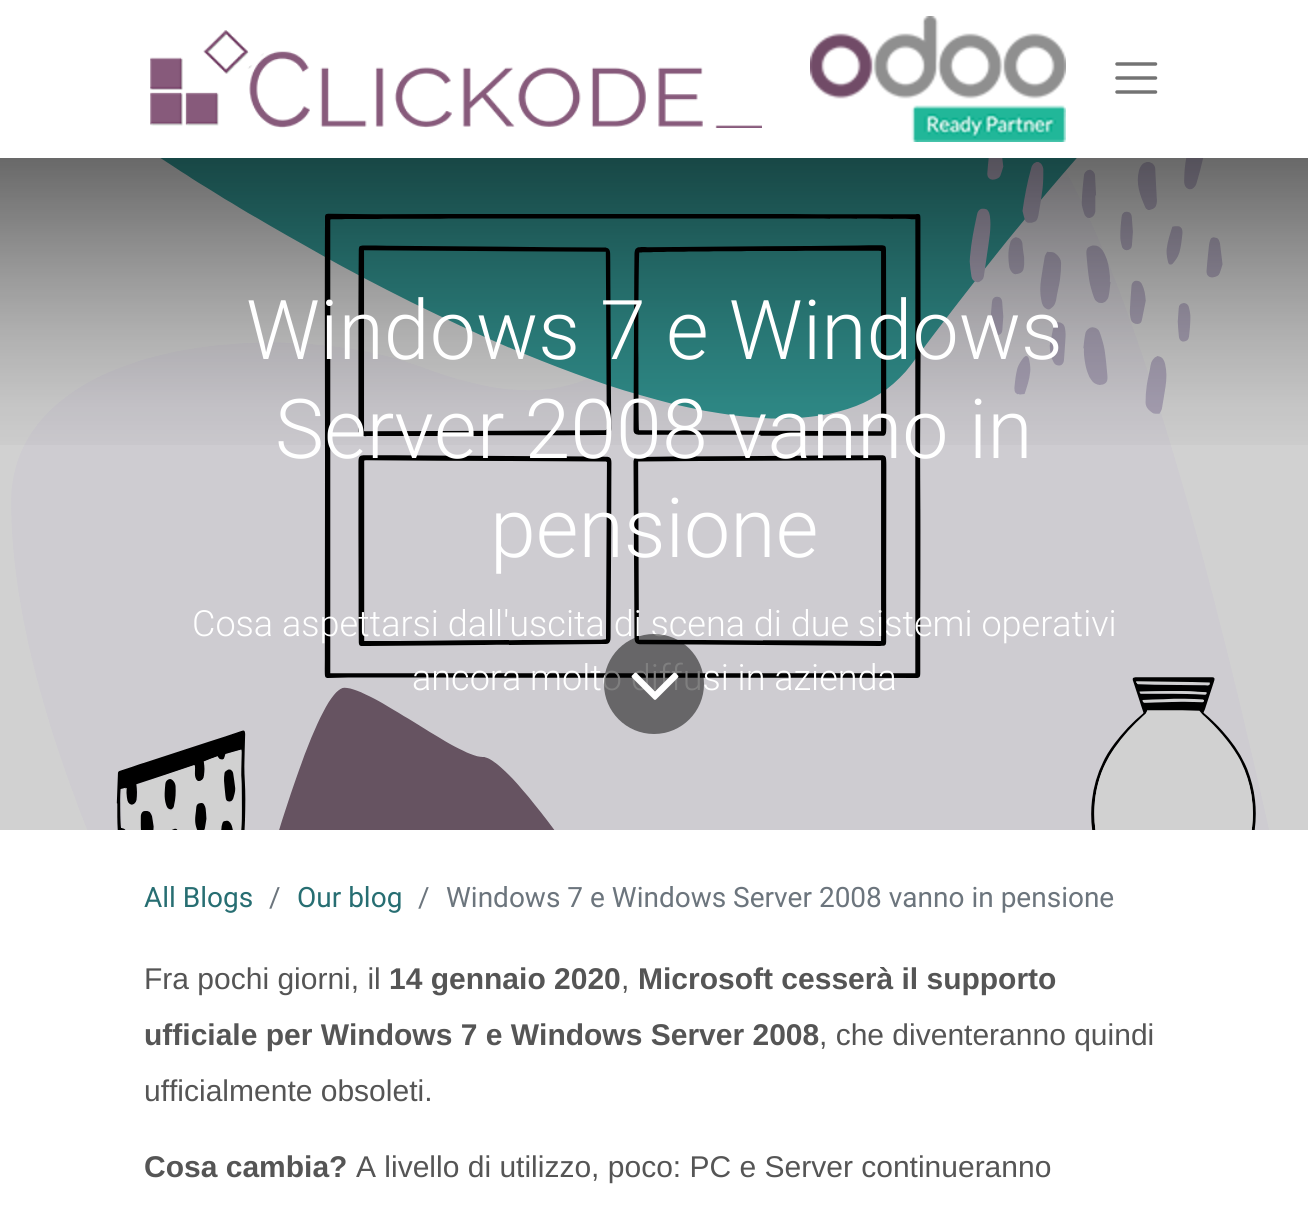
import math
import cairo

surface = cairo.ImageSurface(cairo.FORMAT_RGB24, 1308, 1220)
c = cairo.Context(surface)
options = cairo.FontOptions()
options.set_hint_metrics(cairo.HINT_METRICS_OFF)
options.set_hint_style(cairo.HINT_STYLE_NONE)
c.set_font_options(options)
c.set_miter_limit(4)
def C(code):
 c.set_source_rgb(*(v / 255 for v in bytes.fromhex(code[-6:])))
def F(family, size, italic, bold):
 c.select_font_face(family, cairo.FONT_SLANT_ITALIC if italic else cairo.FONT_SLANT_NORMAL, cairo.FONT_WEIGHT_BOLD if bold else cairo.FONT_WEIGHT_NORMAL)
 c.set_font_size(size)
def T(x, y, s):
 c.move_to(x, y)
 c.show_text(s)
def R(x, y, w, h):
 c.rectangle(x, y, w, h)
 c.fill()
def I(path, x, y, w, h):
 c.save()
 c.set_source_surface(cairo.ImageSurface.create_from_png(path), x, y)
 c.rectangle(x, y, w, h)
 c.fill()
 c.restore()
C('ffffff')
c.paint()
C('d1d1d1')
R(0,158,1308,672)
I('1.png',150,30,612,98)
I('2.png',810,16,256,126)
c.new_path()
c.move_to(1117,64)
c.line_to(1155.5,64)
c.move_to(1117,78)
c.line_to(1155.5,78)
c.move_to(1117,92)
c.line_to(1155.5,92)
C('737373')
c.set_line_width(3.5)
c.set_line_cap(cairo.LINE_CAP_ROUND)
c.stroke()
I('3.png',11,158,1258,672)
gradient = cairo.LinearGradient(654,158,654,494)
gradient.add_color_stop_rgba(0,0,0,0,.5)
gradient.add_color_stop_rgba(.19,0,0,0,.37)
gradient.add_color_stop_rgba(.34,0,0,0,.27)
gradient.add_color_stop_rgba(.47,0,0,0,.19)
gradient.add_color_stop_rgba(.56,0,0,0,.14)
gradient.add_color_stop_rgba(.65,0,0,0,.1)
gradient.add_color_stop_rgba(.73,0,0,0,.06)
gradient.add_color_stop_rgba(.8,0,0,0,.04)
gradient.add_color_stop_rgba(.86,0,0,0,.02)
gradient.add_color_stop_rgba(.91,0,0,0,.01)
gradient.add_color_stop_rgba(.95,0,0,0,0)
gradient.add_color_stop_rgba(.98,0,0,0,0)
gradient.add_color_stop_rgba(1,0,0,0,0)
c.set_source(gradient)
R(0,158,1308,287)
F('Roboto Light',82.5,0,0)
C('ffffff')
T(246,359,'Windows 7 e Windows')
T(275,458,'Server 2008 vanno in')
T(490,557,'pensione')
F('Roboto Light',36,0,0)
T(192,636,'Cosa aspettarsi dall\'uscita di scena di due sistemi operativi')
T(412,690,'ancora molto diffusi in azienda')
c.set_source_rgba(0,0,0,0.5)
c.new_path()
c.arc(654,684,50,0,2 * math.pi)
c.fill()
I('4.png',631,672,48,28)
F('Roboto',28,0,0)
C('276e72')
T(144,907,'All Blogs')
C('6c757d')
T(269,907,'/')
C('276e72')
T(297,907,'Our blog')
C('6c757d')
T(418,907,'/')
T(446,907,'Windows 7 e Windows Server 2008 vanno in pensione')
F('Liberation Sans',30,0,0)
C('555555')
T(144,989,'Fra pochi giorni, il')
F('Liberation Sans',30,0,1)
T(389,989,'14 gennaio 2020')
F('Liberation Sans',30,0,0)
T(621,989,',')
F('Liberation Sans',30,0,1)
T(638,989,'Microsoft cesserà il supporto')
T(144,1045,'ufficiale per Windows 7 e Windows Server 2008')
F('Liberation Sans',30,0,0)
T(819,1045,', che diventeranno quindi')
T(144,1101,'ufficialmente obsoleti.')
F('Liberation Sans',30,0,1)
T(144,1177,'Cosa cambia?')
F('Liberation Sans',30,0,0)
T(356,1177,'A livello di utilizzo, poco: PC e Server continueranno')
surface.write_to_png('o.png')
